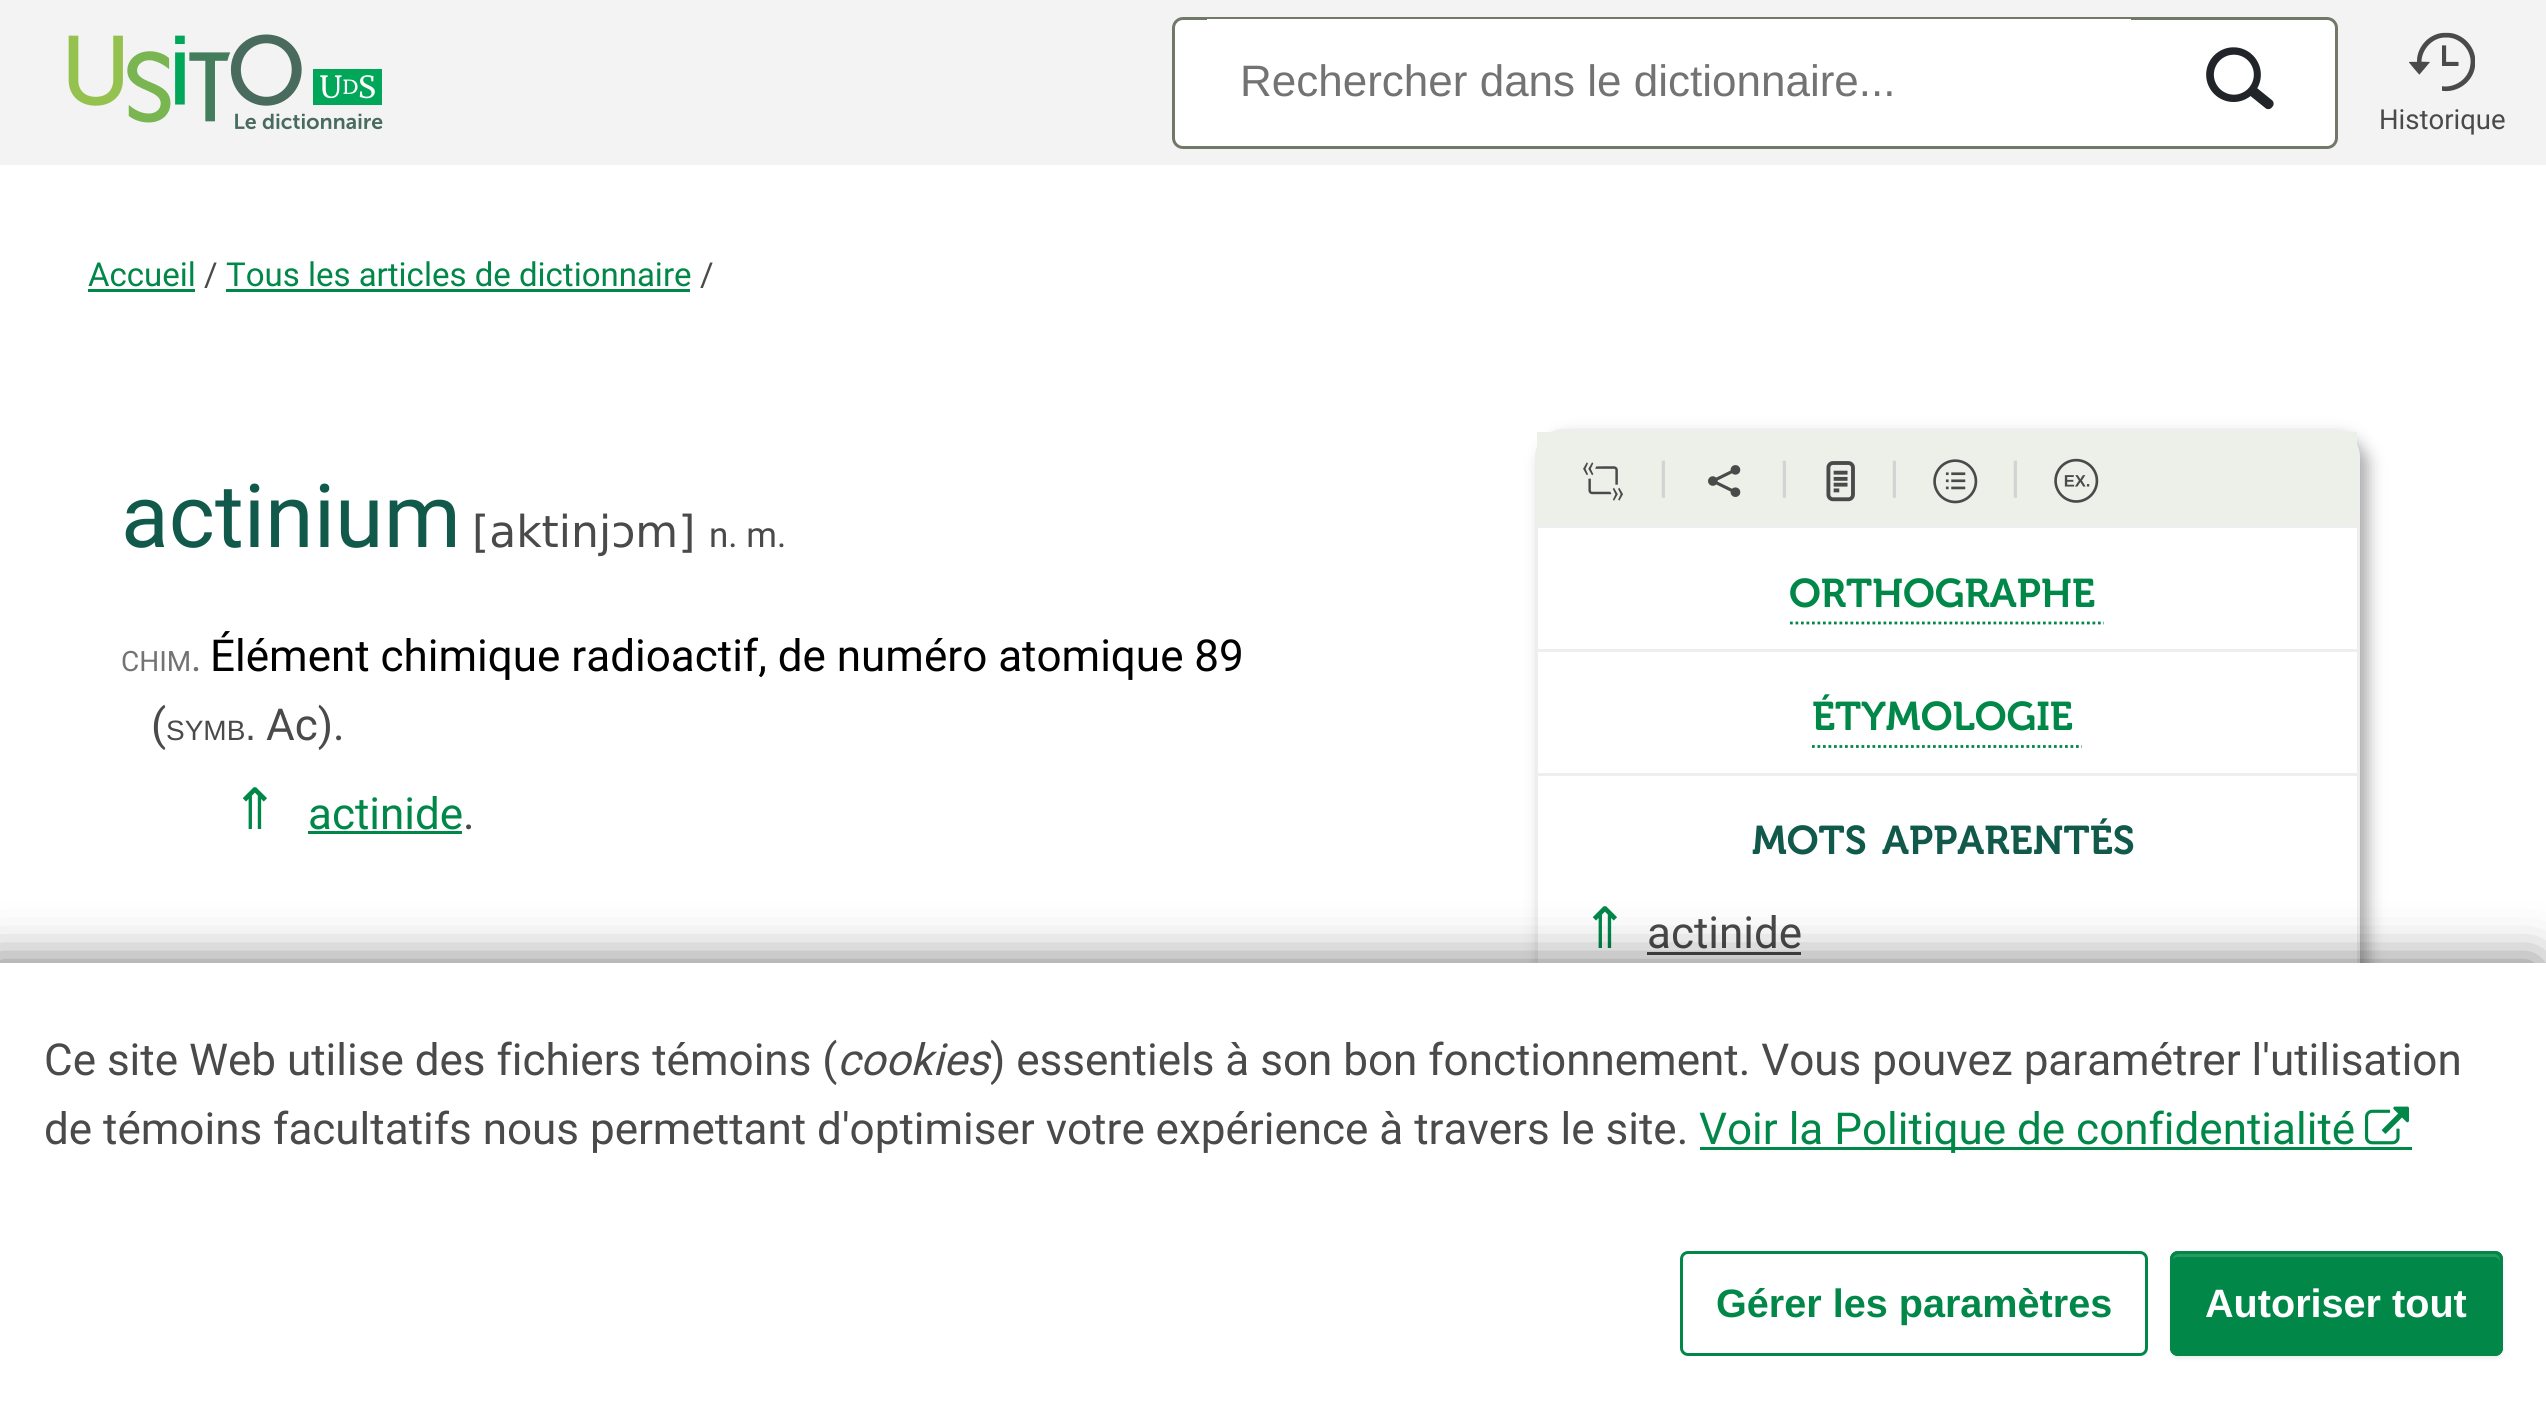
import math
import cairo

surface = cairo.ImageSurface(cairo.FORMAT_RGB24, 2546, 1420)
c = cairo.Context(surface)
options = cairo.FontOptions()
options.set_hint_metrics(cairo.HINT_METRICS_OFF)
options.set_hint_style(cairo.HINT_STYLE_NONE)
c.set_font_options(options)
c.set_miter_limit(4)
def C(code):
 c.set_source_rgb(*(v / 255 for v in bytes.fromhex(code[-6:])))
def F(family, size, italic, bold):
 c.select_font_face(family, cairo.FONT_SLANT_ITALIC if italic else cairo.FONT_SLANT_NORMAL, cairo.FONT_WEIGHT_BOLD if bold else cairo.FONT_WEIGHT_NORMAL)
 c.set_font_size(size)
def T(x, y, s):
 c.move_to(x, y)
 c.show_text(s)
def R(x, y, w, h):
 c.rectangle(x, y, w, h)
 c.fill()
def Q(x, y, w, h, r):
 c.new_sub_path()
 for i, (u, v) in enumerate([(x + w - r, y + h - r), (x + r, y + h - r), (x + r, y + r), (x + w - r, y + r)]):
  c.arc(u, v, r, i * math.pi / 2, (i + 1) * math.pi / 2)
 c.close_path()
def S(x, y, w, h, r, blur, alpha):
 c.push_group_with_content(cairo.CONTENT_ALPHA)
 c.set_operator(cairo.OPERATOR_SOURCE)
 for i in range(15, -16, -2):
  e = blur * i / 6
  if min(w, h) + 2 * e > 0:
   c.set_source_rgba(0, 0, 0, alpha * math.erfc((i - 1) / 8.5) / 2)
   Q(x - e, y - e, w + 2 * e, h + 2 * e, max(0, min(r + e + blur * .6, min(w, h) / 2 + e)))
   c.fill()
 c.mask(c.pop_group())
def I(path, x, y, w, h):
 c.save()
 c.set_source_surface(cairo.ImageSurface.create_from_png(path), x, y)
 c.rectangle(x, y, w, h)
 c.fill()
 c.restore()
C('ffffff')
c.paint()
C('f3f3f3')
R(0,0,2546,165)
I('1.png',68,34,315,96)
C('ffffff')
Q(1173.5,18.5,1163,129,9.5)
c.fill_preserve()
C('727868')
c.set_line_width(3)
c.stroke()
C('ffffff')
R(1207,19,924,1)
F('Liberation Sans',44,0,0)
C('737373')
T(1240,96,'Rechercher dans le dictionnaire...')
I('2.png',2206,47,68,63)
I('3.png',2409,32,66,60)
F('Roboto',27.5,0,0)
C('4a4a4a')
T(2379,129,'Historique')
F('Roboto',33,0,0)
C('018849')
T(88,286,'Accueil')
R(88,289,107,3)
C('4a4a4a')
T(204,286,'/')
C('018849')
T(226,286,'Tous les articles de dictionnaire')
R(226,289,464,3)
C('4a4a4a')
T(700,286,'/')
F('Roboto',88,0,0)
C('11594b')
T(121,547,'actinium')
F('DejaVu Sans',44,0,0)
C('4a4a4a')
T(472,547,'[aktinjɔm]')
F('Roboto',35,0,0)
T(709,547,'n. m.')
F('Roboto',28,0,0)
C('737373')
T(121,671,'CHIM')
F('Roboto',39.6,0,0)
T(191,671,'.')
F('Roboto',44,0,0)
C('000000')
T(210,671,'Élément chimique radioactif, de numéro atomique 89')
C('4a4a4a')
T(151,740,'(')
F('Liberation Sans',28,0,0)
T(166,740,'SYMB')
F('Liberation Sans',39.6,0,0)
T(245,740,'.')
F('Roboto',44,0,0)
T(266,740,'Ac).')
F('DejaVu Sans',57,0,0)
C('018849')
T(231,829,'⇑')
F('Roboto',44,0,0)
T(308,829,'actinide')
R(308,831,154,3)
C('4a4a4a')
T(463,829,'.')
C('aaaaaa')
S(1543,437,825,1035,28,8,1)
C('ffffff')
Q(1536.5,430.5,822,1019,26.5)
c.fill_preserve()
C('eeeeee')
c.stroke()
C('edefe9')
R(1537,432,820,93)
I('4.png',1583,462,40,39)
C('d3d3d3')
T(1658,492,'|')
I('5.png',1708,465,33,32)
T(1779,492,'|')
I('6.png',1826,461,29,41)
T(1889,492,'|')
I('7.png',1933,459,45,45)
T(2010,492,'|')
I('8.png',2054,458,45,45)
C('eeeeee')
R(1537,525,820,3)
F('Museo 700 SemiBold',40,0,0)
C('018849')
T(1789,607,'ORTHOGRAPHE')
c.new_path()
c.move_to(1790,623)
c.line_to(2104,623)
c.set_line_width(2.8)
c.set_dash([2.75,2.75])
c.stroke()
C('eeeeee')
R(1537,649,820,3)
C('018849')
T(1812,730,'ÉTYMOLOGIE')
c.new_path()
c.move_to(1812,746.5)
c.line_to(2082,746.5)
c.stroke()
C('eeeeee')
R(1537,773,820,3)
C('11594b')
T(1752,854,'MOTS')
T(1882,854,'APPARENTÉS')
F('DejaVu Sans',57,0,0)
C('018849')
T(1581,948,'⇑')
F('Roboto',44,0,0)
C('4a4a4a')
T(1647,948,'actinide')
R(1647,952,154,3)
C('000000')
S(-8,963,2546,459,0,25,.55)
C('ffffff')
R(0,963,2546,457)
C('4a4a4a')
T(44,1075,'Ce site Web utilise des fichiers témoins (')
F('Roboto',44,1,0)
T(837,1075,'cookies')
F('Roboto',44,0,0)
T(990,1075,') essentiels à son bon fonctionnement. Vous pouvez paramétrer l\'utilisation')
T(44,1144,'de témoins facultatifs nous permettant d\'optimiser votre expérience à travers le site.')
C('018849')
R(1700,1147,712,3)
T(1699,1144,'Voir la Politique de confidentialité')
I('9.png',2365,1106,44,39)
Q(1681.5,1252.5,465,102,6.5)
c.set_line_width(3)
c.set_dash([])
c.stroke()
F('Liberation Sans',39.6,0,1)
T(1716,1317,'Gérer les paramètres')
C('000000')
S(2170,1254,333,105,8,1.5,.07)
C('018849')
Q(2170,1251,333,105,8)
c.fill()
C('279a64')
c.new_path()
c.move_to(2178,1257)
c.line_to(2494,1257)
c.curve_to(2497,1257,2500,1259,2500,1262)
c.line_to(2500,1260)
c.curve_to(2500,1257,2497,1254,2494,1254)
c.line_to(2179,1254)
c.curve_to(2176,1254,2173,1256,2173,1259)
c.curve_to(2174,1258,2176,1257,2178,1257)
c.close_path()
c.fill()
Q(2171.5,1252.5,330,102,6.5)
C('018849')
c.stroke()
C('ffffff')
T(2205,1317,'Autoriser tout')
surface.write_to_png('o.png')
